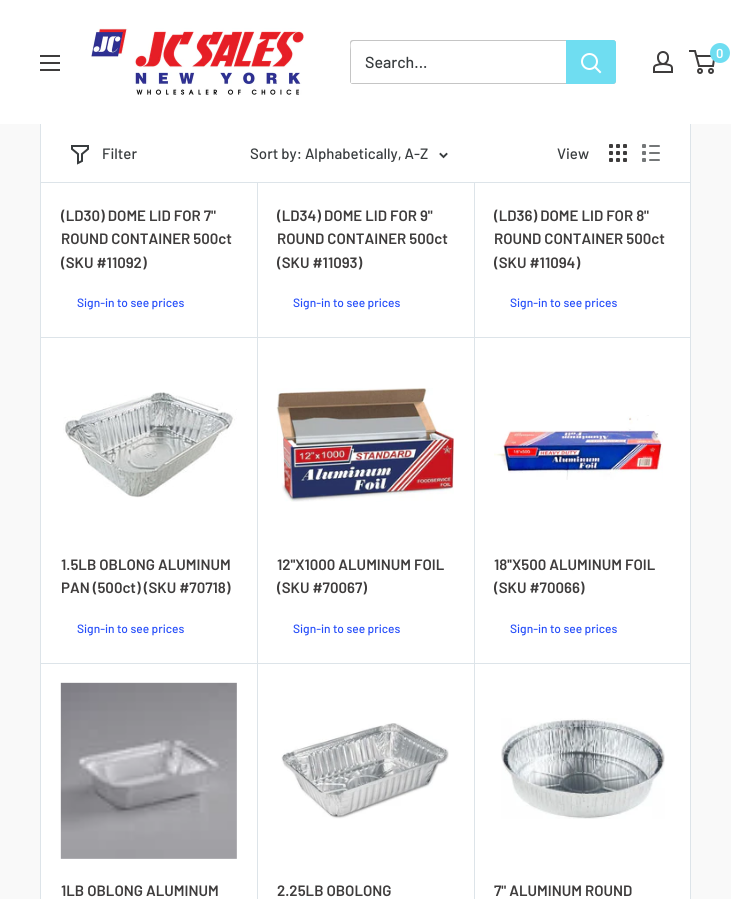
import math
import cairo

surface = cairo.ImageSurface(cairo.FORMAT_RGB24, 731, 899)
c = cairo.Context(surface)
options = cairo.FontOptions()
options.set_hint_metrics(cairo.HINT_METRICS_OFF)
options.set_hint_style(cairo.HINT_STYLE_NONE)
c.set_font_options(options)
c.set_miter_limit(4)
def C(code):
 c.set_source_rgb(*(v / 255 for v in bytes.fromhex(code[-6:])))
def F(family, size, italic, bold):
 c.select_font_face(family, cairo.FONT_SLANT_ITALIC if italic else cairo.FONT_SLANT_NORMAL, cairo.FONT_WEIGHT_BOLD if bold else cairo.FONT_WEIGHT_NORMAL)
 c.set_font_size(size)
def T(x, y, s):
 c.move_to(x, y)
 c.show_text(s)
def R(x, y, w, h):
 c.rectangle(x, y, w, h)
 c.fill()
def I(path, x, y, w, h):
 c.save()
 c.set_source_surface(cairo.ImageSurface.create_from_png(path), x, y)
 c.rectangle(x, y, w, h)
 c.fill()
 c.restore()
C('f9f9f9')
c.paint()
C('ffffff')
R(41,183,649,716)
c.rectangle(40.5,-.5,650,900)
C('dde4e9')
c.set_line_width(1)
c.stroke()
C('ffffff')
R(0,0,731,124)
I('1.png',91,28,213,67)
I('2.png',653,51,20,22)
c.arc(700,71,2,0,2 * math.pi)
C('3e3c3c')
c.set_line_width(2)
c.stroke()
c.arc(711,71,2,0,2 * math.pi)
c.stroke()
c.new_path()
c.move_to(696.5,56)
c.line_to(714.5,56)
c.line_to(713,66)
c.line_to(699,66)
c.line_to(695,51)
c.line_to(689,51)
c.stroke()
C('6fddf1')
c.arc(720,53,10,0,2 * math.pi)
c.fill()
F('Barlow SemiBold',13,0,0)
C('ffffff')
T(716,58,'0')
I('3.png',40,55,20,16)
C('c5c5c5')
c.new_path()
c.move_to(351,83)
c.curve_to(351,84,352,84,353,84)
c.line_to(613,84)
c.curve_to(615,84,616,83,616,81)
c.line_to(616,43)
c.curve_to(616,42,616,41,615,41)
c.line_to(615,74)
c.curve_to(615,76,617,83,612,83)
c.close_path()
c.fill()
c.new_path()
c.move_to(354,41)
c.line_to(615,41)
c.curve_to(615,40,614,40,613,40)
c.line_to(353,40)
c.curve_to(351,40,350,41,350,43)
c.line_to(350,81)
c.curve_to(350,82,350,83,351,83)
c.line_to(351,50)
c.curve_to(351,48,349,41,354,41)
c.close_path()
c.fill()
F('Barlow Medium',16,0,0)
C('383c3e')
T(365,68,'Search...')
C('6fddf1')
c.new_path()
c.move_to(566,40)
c.line_to(613,40)
c.curve_to(614.5,40,616,41.5,616,43)
c.line_to(616,81)
c.curve_to(616,82.5,614.5,84,613,84)
c.line_to(566,84)
c.close_path()
c.fill()
c.new_path()
c.move_to(600,72)
c.line_to(595,67)
C('ffffff')
c.set_line_cap(cairo.LINE_CAP_SQUARE)
c.stroke()
c.arc(589.5,61.5,7.5,0,2 * math.pi)
c.set_line_cap(cairo.LINE_CAP_BUTT)
c.stroke()
C('dde4e9')
R(41,182,649,1)
C('ffffff')
R(41,124,649,58)
c.new_path()
c.move_to(88,149)
c.line_to(82,154)
c.line_to(82,161)
c.line_to(78,163)
c.line_to(78,154)
c.line_to(72,149)
c.line_to(72,146)
c.line_to(88,146)
c.close_path()
C('383c3e')
c.set_line_cap(cairo.LINE_CAP_SQUARE)
c.stroke()
F('Barlow Medium',15,0,0)
T(102,159,'Filter')
T(250,159,'Sort by: Alphabetically, A-Z')
c.new_path()
c.move_to(446.5,154)
c.line_to(443.5,157)
c.line_to(440.5,154)
c.set_line_width(1.9)
c.stroke()
T(557,159,'View')
I('4.png',609,144,18,18)
I('5.png',642,144,18,18)
C('dde4e9')
R(41,337,649,1)
R(257,183,1,480)
F('Barlow SemiBold',15,0,0)
C('3e3c3c')
T(61,221,'(LD30) DOME LID FOR 7"')
T(61,244,'ROUND CONTAINER 500ct')
T(61,268,'(SKU #11092)')
F('Barlow Medium',12,0,0)
C('264ef9')
T(77,307,'Sign-in to see prices')
F('Barlow SemiBold',15,0,0)
C('3e3c3c')
T(277,221,'(LD34) DOME LID FOR 9"')
T(277,244,'ROUND CONTAINER 500ct')
T(277,268,'(SKU #11093)')
F('Barlow Medium',12,0,0)
C('264ef9')
T(293,307,'Sign-in to see prices')
C('dde4e9')
R(474,183,1,480)
F('Barlow SemiBold',15,0,0)
C('3e3c3c')
T(494,221,'(LD36) DOME LID FOR 8"')
T(494,244,'ROUND CONTAINER 500ct')
T(494,268,'(SKU #11094)')
F('Barlow Medium',12,0,0)
C('264ef9')
T(510,307,'Sign-in to see prices')
I('6.png',63,392,174,106)
F('Barlow SemiBold',15,0,0)
C('3e3c3c')
T(61,570,'1.5LB OBLONG ALUMINUM')
T(61,593,'PAN (500ct) (SKU #70718)')
F('Barlow Medium',12,0,0)
C('264ef9')
T(77,633,'Sign-in to see prices')
C('dde4e9')
R(41,663,649,1)
I('7.png',276,388,178,114)
F('Barlow SemiBold',15,0,0)
C('3e3c3c')
T(277,570,'12\'\'X1000 ALUMINUM FOIL')
T(277,593,'(SKU #70067)')
F('Barlow Medium',12,0,0)
C('264ef9')
T(293,633,'Sign-in to see prices')
I('8.png',494,415,169,65)
F('Barlow SemiBold',15,0,0)
C('3e3c3c')
T(494,570,'18\'\'X500 ALUMINUM FOIL')
T(494,593,'(SKU #70066)')
F('Barlow Medium',12,0,0)
C('264ef9')
T(510,633,'Sign-in to see prices')
I('9.png',60,682,177,177)
C('dde4e9')
R(257,663,1,236)
F('Barlow SemiBold',15,0,0)
C('3e3c3c')
T(61,896,'1LB OBLONG ALUMINUM')
I('10.png',281,723,168,96)
C('dde4e9')
R(474,663,1,236)
C('3e3c3c')
T(277,896,'2.25LB OBOLONG')
I('11.png',501,718,164,101)
T(494,896,'7" ALUMINUM ROUND')
surface.write_to_png('o.png')
